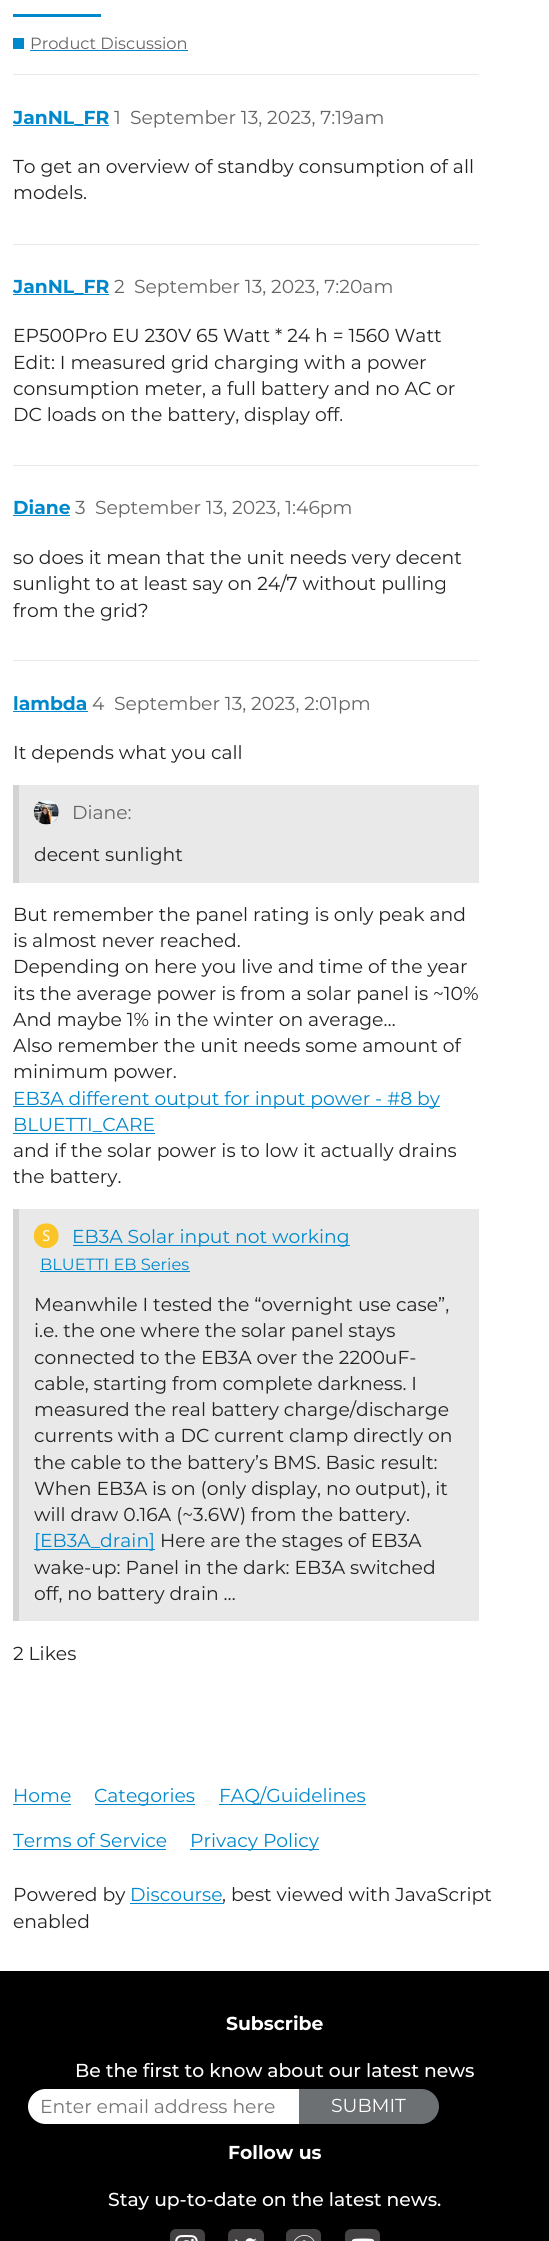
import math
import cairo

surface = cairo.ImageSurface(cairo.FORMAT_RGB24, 549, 2241)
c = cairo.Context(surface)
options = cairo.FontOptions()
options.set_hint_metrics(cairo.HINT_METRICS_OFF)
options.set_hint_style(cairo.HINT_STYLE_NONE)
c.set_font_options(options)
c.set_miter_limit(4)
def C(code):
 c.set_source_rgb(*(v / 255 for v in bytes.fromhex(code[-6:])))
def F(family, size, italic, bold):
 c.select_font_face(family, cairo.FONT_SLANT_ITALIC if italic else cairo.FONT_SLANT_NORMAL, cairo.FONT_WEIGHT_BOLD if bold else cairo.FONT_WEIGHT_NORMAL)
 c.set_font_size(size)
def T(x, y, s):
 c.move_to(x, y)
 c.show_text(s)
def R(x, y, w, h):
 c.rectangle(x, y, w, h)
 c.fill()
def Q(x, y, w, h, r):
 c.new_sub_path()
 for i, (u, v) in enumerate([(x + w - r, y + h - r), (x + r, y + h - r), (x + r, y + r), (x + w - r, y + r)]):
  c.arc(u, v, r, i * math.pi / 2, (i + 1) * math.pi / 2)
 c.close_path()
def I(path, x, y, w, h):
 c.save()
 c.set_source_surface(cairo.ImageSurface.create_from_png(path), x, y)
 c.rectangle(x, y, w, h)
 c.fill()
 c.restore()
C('ffffff')
c.paint()
C('0088cc')
R(13,14,88,3)
R(13,38,11,11)
F('Montserrat',16.25,0,0)
C('646464')
T(30,49,'Product Discussion')
C('0088cc')
R(30,50,158,1)
C('e9e9e9')
R(13,74,466,1)
C('0088cc')
R(13,125,96,1)
F('Montserrat',18.75,0,1)
T(13,124,'JanNL_FR')
F('Montserrat',18.75,0,0)
C('646464')
T(114,124,'1')
T(130,124,'September 13, 2023, 7:19am')
C('222222')
T(13,173,'To get an overview of standby consumption of all')
T(13,199,'models.')
C('e9e9e9')
R(13,244,466,1)
C('0088cc')
R(13,294,96,1)
F('Montserrat',18.75,0,1)
T(13,293,'JanNL_FR')
F('Montserrat',18.75,0,0)
C('646464')
T(114,293,'2')
T(134,293,'September 13, 2023, 7:20am')
C('222222')
T(13,342,'EP500Pro EU 230V 65 Watt * 24 h = 1560 Watt')
T(13,369,'Edit: I measured grid charging with a power')
T(13,395,'consumption meter, a full battery and no AC or')
T(13,421,'DC loads on the battery, display off.')
C('e9e9e9')
R(13,465,466,1)
F('Montserrat',18.75,0,1)
C('0088cc')
T(13,514,'Diane')
R(13,515,57,1)
F('Montserrat',18.75,0,0)
C('646464')
T(75,514,'3')
T(95,514,'September 13, 2023, 1:46pm')
C('222222')
T(13,564,'so does it mean that the unit needs very decent')
T(13,590,'sunlight to at least say on 24/7 without pulling')
T(13,617,'from the grid?')
C('e9e9e9')
R(13,660,466,1)
F('Montserrat',18.75,0,1)
C('0088cc')
T(13,710,'lambda')
R(13,711,75,1)
F('Montserrat',18.75,0,0)
C('646464')
T(92,710,'4')
T(114,710,'September 13, 2023, 2:01pm')
C('222222')
T(13,759,'It depends what you call')
C('e9e9e9')
R(19,785,460,98)
C('d3d3d3')
R(13,785,6,98)
I('1.png',33,799,26,26)
C('646464')
T(72,819,'Diane:')
C('222222')
T(34,861,'decent sunlight')
T(13,921,'But remember the panel rating is only peak and')
T(13,947,'is almost never reached.')
T(13,973,'Depending on here you live and time of the year')
T(13,1000,'its the average power is from a solar panel is ~10%')
T(13,1026,'And maybe 1% in the winter on average…')
T(13,1052,'Also remember the unit needs some amount of')
T(13,1078,'minimum power.')
C('0088cc')
R(13,1106,427,1)
T(13,1105,'EB3A different output for input power - #8 by')
T(13,1131,'BLUETTI_CARE')
R(13,1133,142,1)
C('222222')
T(13,1157,'and if the solar power is to low it actually drains')
T(13,1183,'the battery.')
C('e9e9e9')
R(19,1209,460,412)
C('d3d3d3')
R(13,1209,6,412)
I('2.png',33,1223,26,26)
C('0088cc')
R(73,1245,277,1)
T(72,1243,'EB3A Solar input not working')
F('Montserrat',16.25,0,0)
T(40,1270,'BLUETTI EB Series')
R(40,1271,150,1)
F('Montserrat',18.75,0,0)
C('222222')
T(34,1311,'Meanwhile I tested the “overnight use case”,')
T(34,1337,'i.e. the one where the solar panel stays')
T(34,1364,'connected to the EB3A over the 2200uF-')
T(34,1390,'cable, starting from complete darkness. I')
T(34,1416,'measured the real battery charge/discharge')
T(34,1442,'currents with a DC current clamp directly on')
T(34,1469,'the cable to the battery’s BMS. Basic result:')
T(34,1495,'When EB3A is on (only display, no output), it')
T(34,1521,'will draw 0.16A (~3.6W) from the battery.')
C('0088cc')
R(34,1549,121,1)
T(34,1547,'[EB3A_drain]')
C('222222')
T(160,1547,'Here are the stages of EB3A')
T(34,1574,'wake-up: Panel in the dark: EB3A switched')
T(34,1600,'off, no battery drain …')
T(13,1660,'2 Likes')
C('0088cc')
T(13,1802,'Home')
R(13,1804,58,1)
R(95,1804,100,1)
T(94,1802,'Categories')
R(219,1804,147,1)
T(219,1802,'FAQ/Guidelines')
T(13,1847,'Terms of Service')
R(13,1849,153,1)
R(190,1849,129,1)
T(190,1847,'Privacy Policy')
C('222222')
T(13,1901,'Powered by')
C('0088cc')
T(130,1901,'Discourse')
R(130,1903,93,1)
C('222222')
T(222,1901,', best viewed with JavaScript')
T(13,1928,'enabled')
C('000000')
R(0,1971,549,270)
F('Montserrat',18.75,0,1)
C('ffffff')
T(226,2030,'Subscribe')
F('Montserrat Medium',18.75,0,0)
T(75,2077,'Be the first to know about our latest news')
c.new_path()
c.move_to(45.5,2089)
c.line_to(329,2089)
c.curve_to(331,2089,333,2091,333,2093)
c.line_to(333,2120)
c.curve_to(333,2122,331,2124,329,2124)
c.line_to(45.5,2124)
c.curve_to(36,2124,28,2116,28,2106.5)
c.curve_to(28,2097,36,2089,45.5,2089)
c.close_path()
c.fill()
F('Montserrat',18.75,0,0)
C('757575')
T(40,2113,'Enter email address here')
C('6c7073')
c.new_path()
c.move_to(299,2089)
c.line_to(421.5,2089)
c.curve_to(431,2089,439,2097,439,2106.5)
c.curve_to(439,2116,431,2124,421.5,2124)
c.line_to(299,2124)
c.close_path()
c.fill()
C('ffffff')
T(331,2112,'SUBMIT')
F('Montserrat',18.75,0,1)
T(228,2159,'Follow us')
F('Montserrat Medium',18.75,0,0)
T(108,2206,'Stay up-to-date on the latest news.')
C('444242')
Q(170,2229,35,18,6)
c.fill()
I('3.png',175,2235,23,6)
Q(228,2229,36,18,6)
c.fill()
I('4.png',235,2238,22,3)
Q(286,2229,35,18,6)
c.fill()
I('5.png',294,2235,21,6)
Q(345,2229,35,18,6)
c.fill()
I('6.png',351,2238,24,3)
surface.write_to_png('o.png')
